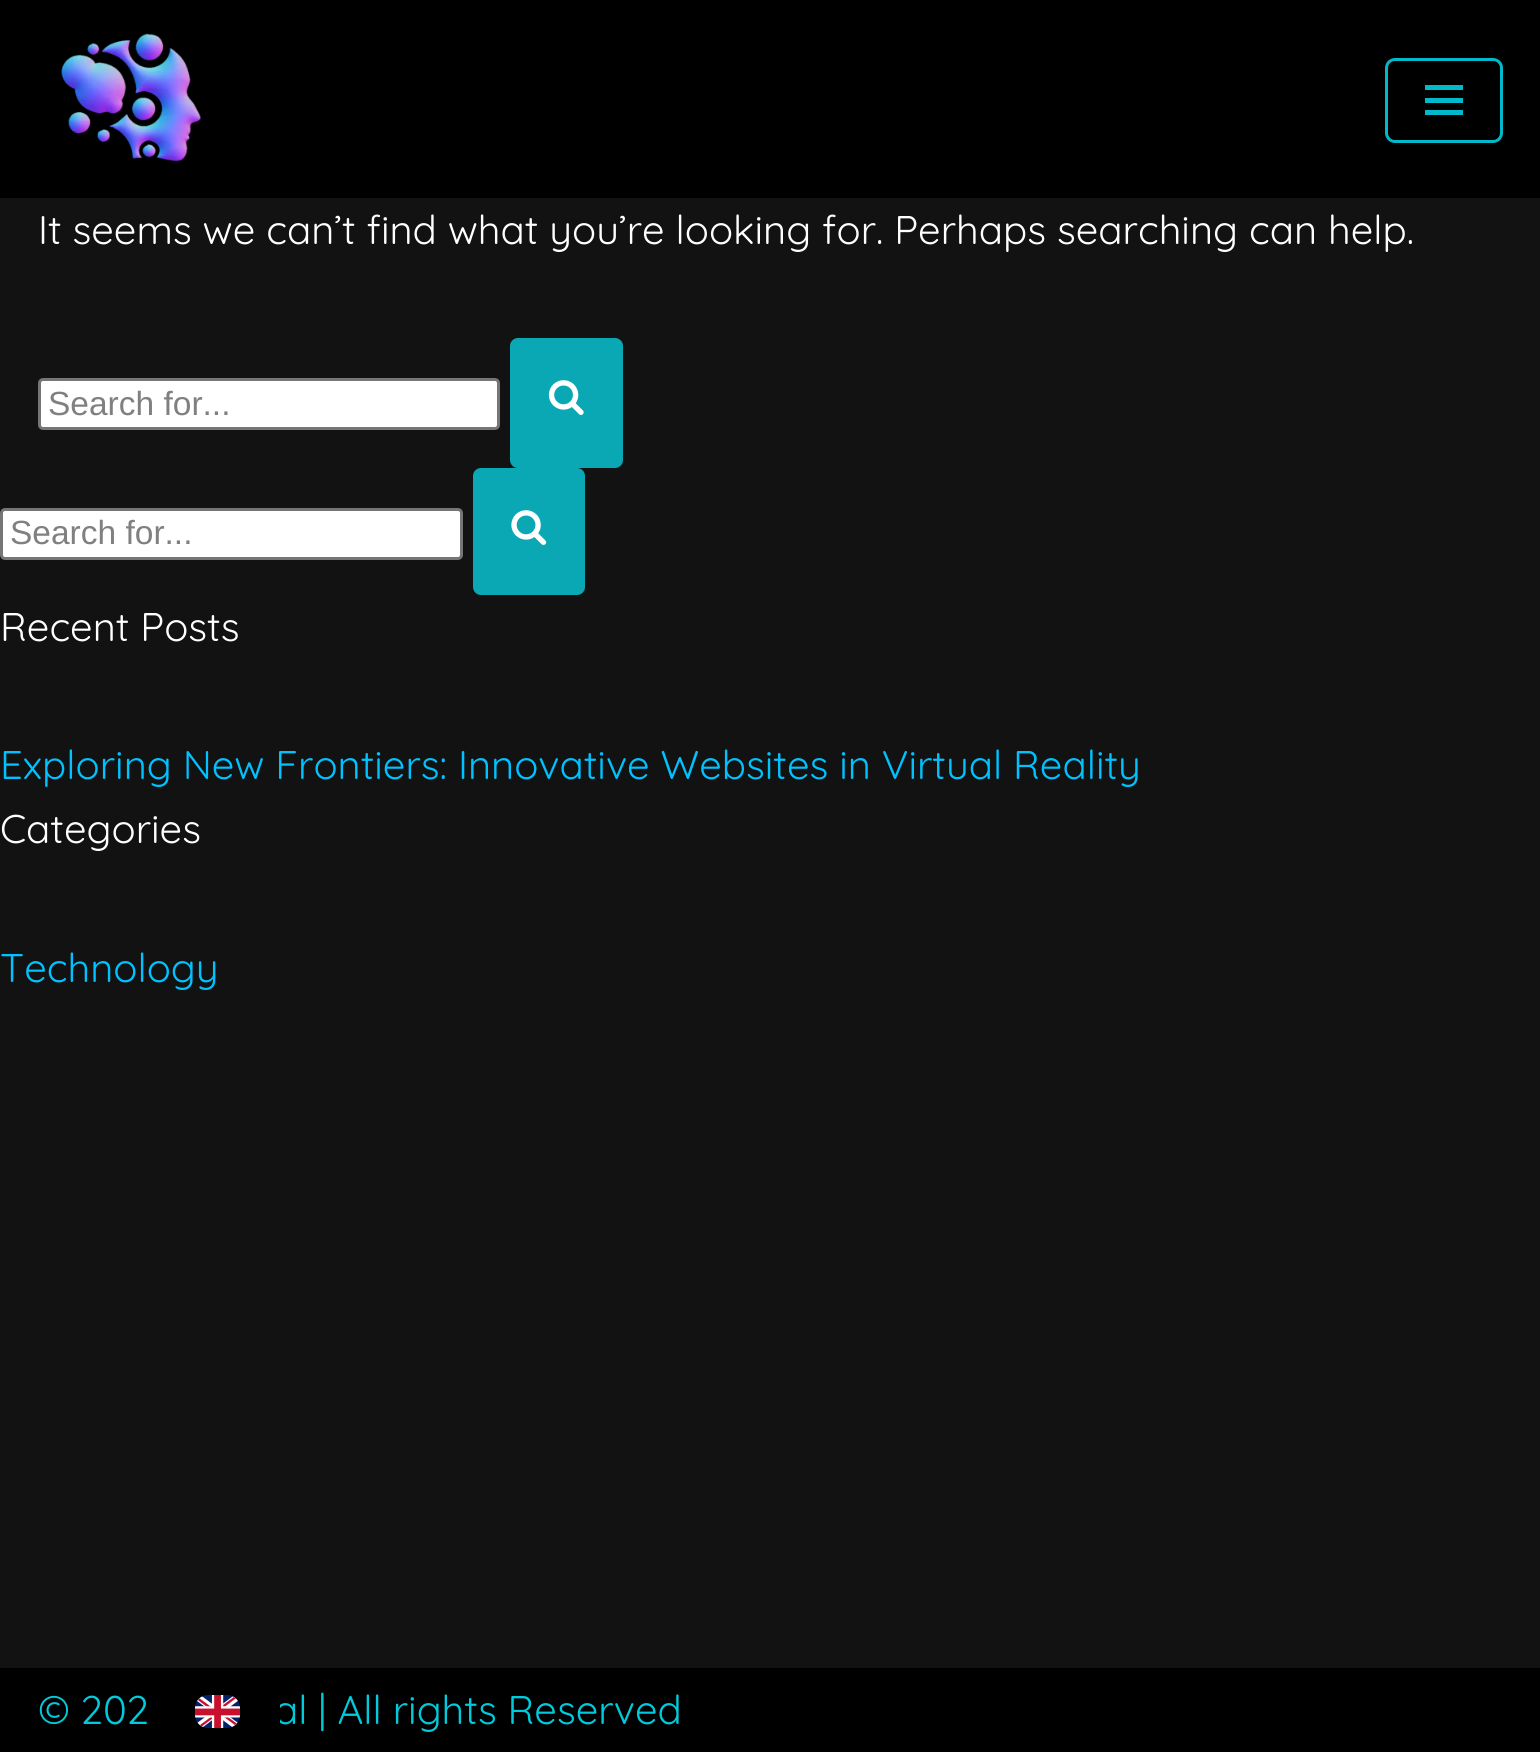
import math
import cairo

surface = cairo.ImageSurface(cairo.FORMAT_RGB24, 1540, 1752)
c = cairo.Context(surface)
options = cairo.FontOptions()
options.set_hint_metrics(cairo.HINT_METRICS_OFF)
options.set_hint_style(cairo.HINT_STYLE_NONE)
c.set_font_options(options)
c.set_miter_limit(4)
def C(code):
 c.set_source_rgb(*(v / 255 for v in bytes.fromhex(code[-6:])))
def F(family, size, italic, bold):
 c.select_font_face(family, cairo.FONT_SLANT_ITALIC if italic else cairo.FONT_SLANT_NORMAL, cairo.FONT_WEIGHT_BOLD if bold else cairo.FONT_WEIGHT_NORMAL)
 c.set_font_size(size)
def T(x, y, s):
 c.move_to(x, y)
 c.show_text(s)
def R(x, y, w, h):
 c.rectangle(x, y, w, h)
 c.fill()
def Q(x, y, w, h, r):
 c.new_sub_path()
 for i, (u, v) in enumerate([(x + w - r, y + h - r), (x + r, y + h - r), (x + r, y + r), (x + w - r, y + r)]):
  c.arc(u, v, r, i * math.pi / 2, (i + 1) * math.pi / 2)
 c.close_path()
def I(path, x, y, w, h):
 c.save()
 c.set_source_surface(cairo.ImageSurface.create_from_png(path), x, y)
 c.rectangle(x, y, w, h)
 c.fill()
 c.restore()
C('121212')
c.paint()
C('000000')
R(0,0,1540,198)
I('1.png',61,33,140,129)
Q(1386.5,59.5,115,82,8.5)
C('00b9ca')
c.set_line_width(3)
c.stroke()
R(1425,85,38,5)
R(1425,98,38,5)
R(1425,110,38,5)
F('Quicksand',40,0,0)
C('ffffff')
T(38,244,'It seems we can’t find what you’re looking for. Perhaps searching can help.')
Q(39.5,379.5,459,49,3.5)
c.fill_preserve()
C('767676')
c.stroke()
F('Liberation Sans',33.5,0,0)
C('808080')
T(48,415,'Search for...')
C('0aa8b5')
Q(510,338,113,130,8)
c.fill()
I('2.png',548,380,36,35)
C('ffffff')
Q(1.5,509.5,460,49,3.5)
c.fill_preserve()
C('767676')
c.stroke()
C('808080')
T(10,544,'Search for...')
C('0aa8b5')
Q(473,468,112,127,8)
c.fill()
I('3.png',511,510,36,35)
F('Quicksand',40,0,0)
C('ffffff')
T(0,641,'Recent Posts')
C('00c2ff')
T(0,779,'Exploring New Frontiers: Innovative Websites in Virtual Reality')
C('ffffff')
T(0,843,'Categories')
C('00c2ff')
T(0,982,'Technology')
C('000000')
R(0,1668,1540,84)
C('00cadc')
T(38,1724,'© 202')
T(274,1724,'al | All rights Reserved')
C('000000')
Q(155,1670,125,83,13)
c.fill()
I('4.png',195,1695,45,33)
surface.write_to_png('o.png')
